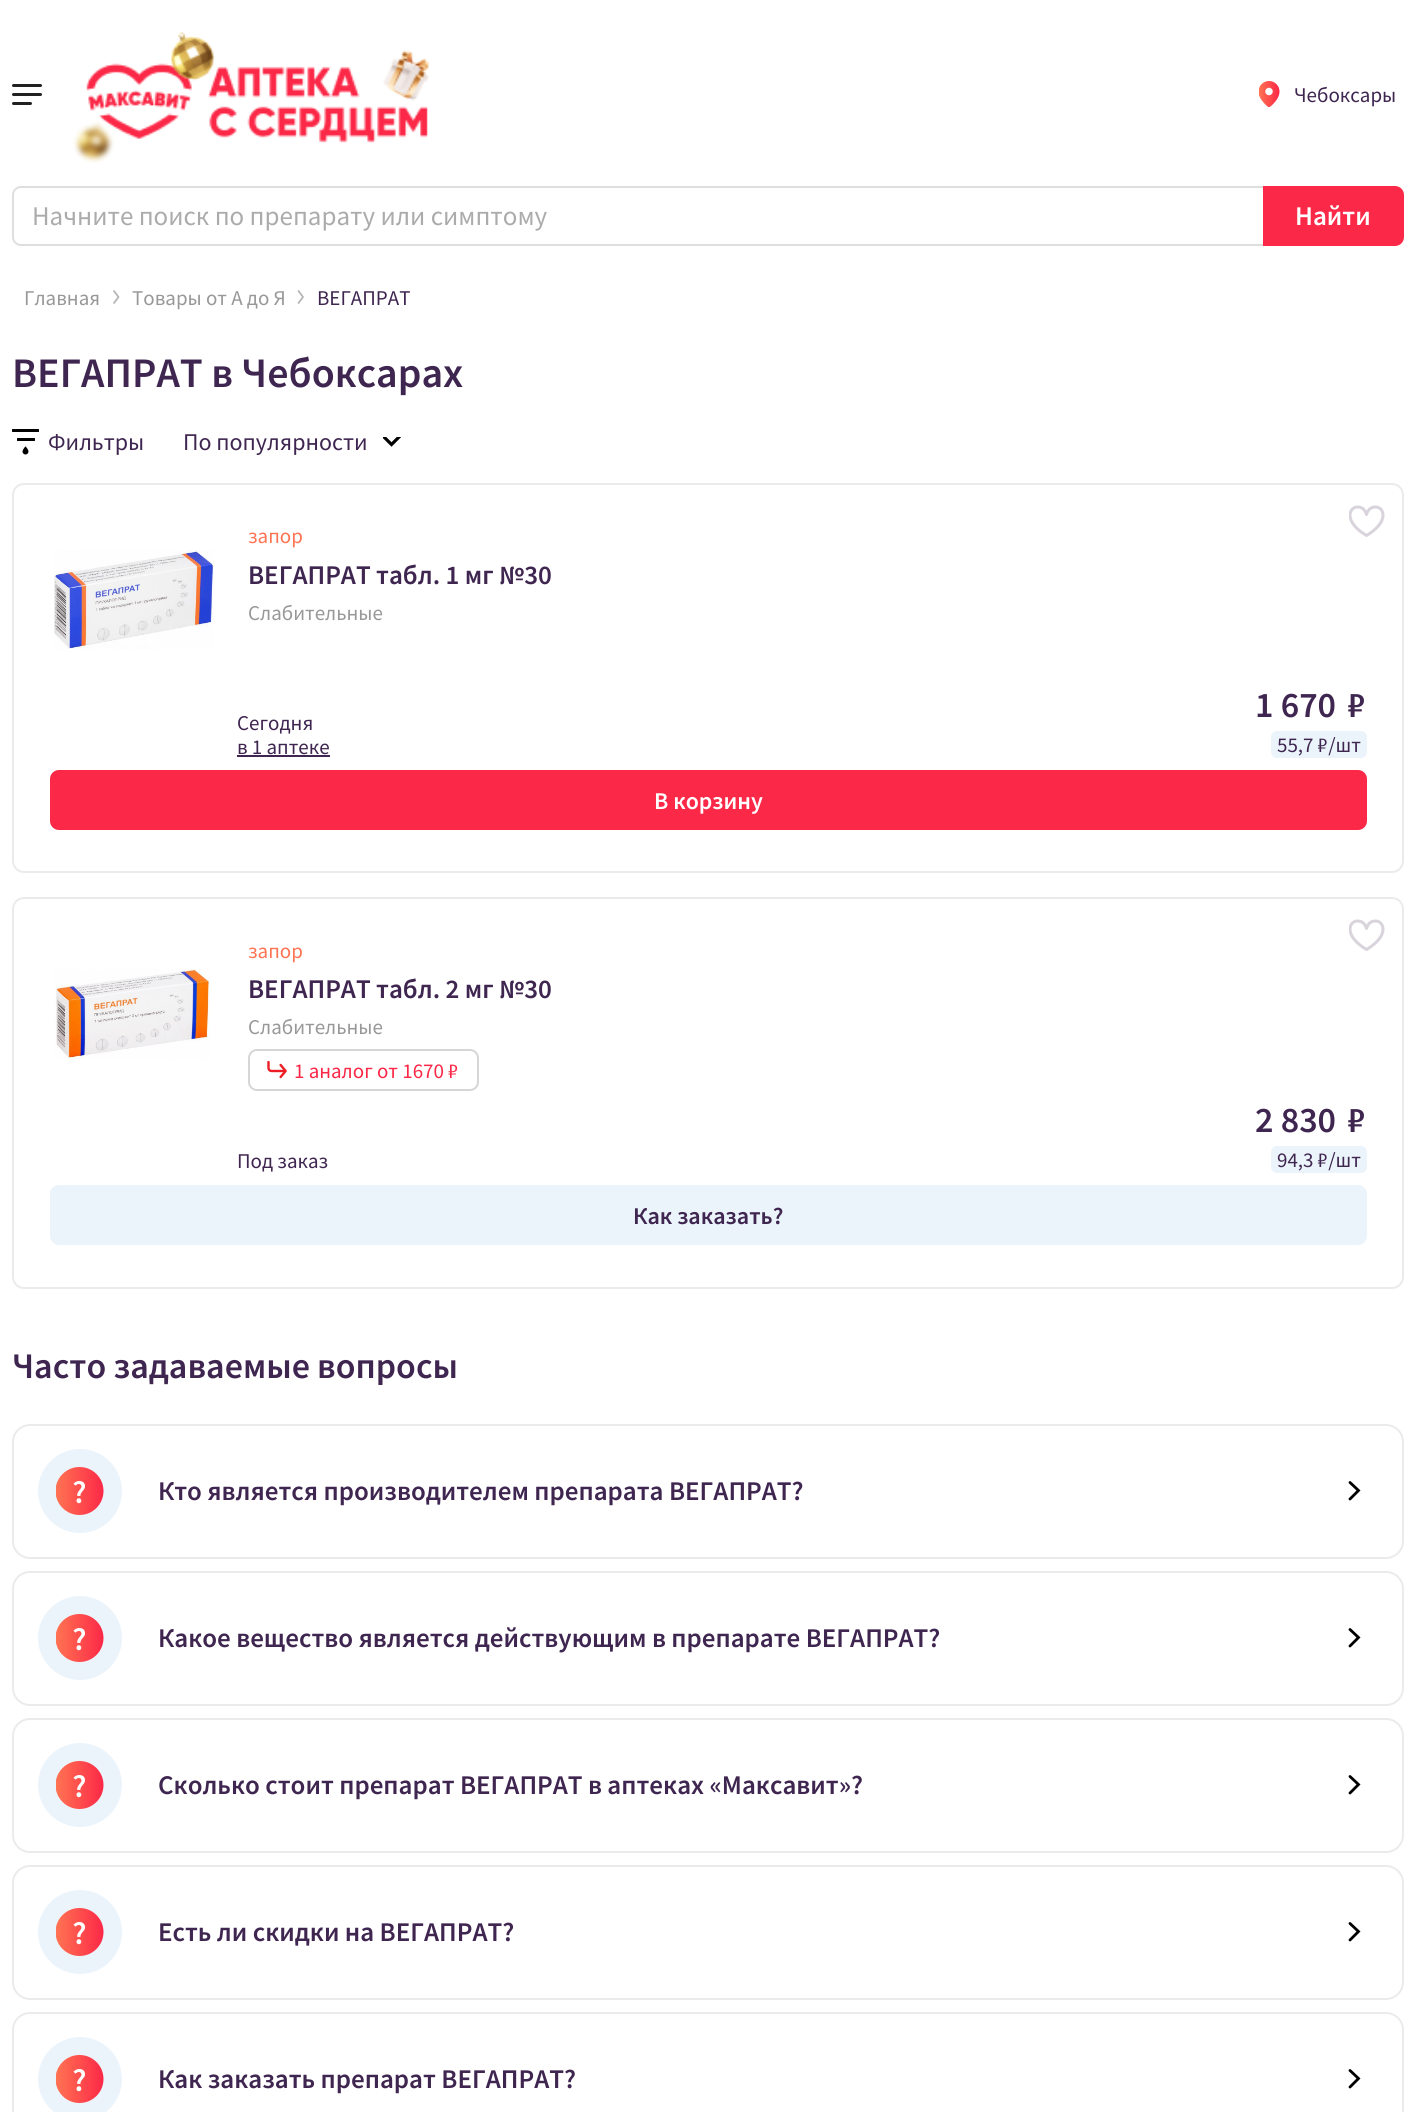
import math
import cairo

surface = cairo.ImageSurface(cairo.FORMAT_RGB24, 1415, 2112)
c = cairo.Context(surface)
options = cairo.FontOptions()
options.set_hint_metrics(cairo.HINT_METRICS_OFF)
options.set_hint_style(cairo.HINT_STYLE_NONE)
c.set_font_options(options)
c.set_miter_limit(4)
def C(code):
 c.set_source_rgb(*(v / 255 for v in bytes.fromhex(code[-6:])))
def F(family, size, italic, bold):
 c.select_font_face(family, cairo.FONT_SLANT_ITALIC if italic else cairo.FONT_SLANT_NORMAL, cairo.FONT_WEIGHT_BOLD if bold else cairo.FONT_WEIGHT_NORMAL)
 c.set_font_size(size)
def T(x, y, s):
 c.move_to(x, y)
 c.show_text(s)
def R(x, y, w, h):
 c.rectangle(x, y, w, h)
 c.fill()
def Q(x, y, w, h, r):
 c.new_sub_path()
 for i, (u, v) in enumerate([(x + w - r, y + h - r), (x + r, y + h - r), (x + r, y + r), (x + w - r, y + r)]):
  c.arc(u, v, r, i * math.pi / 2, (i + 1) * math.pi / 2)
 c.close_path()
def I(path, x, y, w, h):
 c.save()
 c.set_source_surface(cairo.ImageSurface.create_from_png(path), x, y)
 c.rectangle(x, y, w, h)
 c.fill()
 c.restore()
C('ffffff')
c.paint()
C('212121')
Q(12,102,20,3,1.5)
c.fill()
Q(12,84,30,3,1.5)
c.fill()
Q(12,93,30,3,1.5)
c.fill()
I('1.png',73,32,357,131)
I('2.png',1259,81,21,26)
F('Source Sans Pro',21,0,0)
C('3f2650')
T(1294,102,'Чебоксары')
C('dedede')
c.set_fill_rule(cairo.FILL_RULE_EVEN_ODD)
c.new_path()
c.move_to(21,186)
c.line_to(1263,186)
c.line_to(1263,246)
c.line_to(21,246)
c.curve_to(16,246,12,242,12,237)
c.line_to(12,195)
c.curve_to(12,190,16,186,21,186)
c.close_path()
c.move_to(21,188)
c.line_to(1263,188)
c.line_to(1263,244)
c.line_to(21,244)
c.curve_to(17,244,14,241,14,237)
c.line_to(14,195)
c.curve_to(14,191,17,188,21,188)
c.close_path()
c.fill()
F('Source Sans Pro',27,0,0)
C('ababab')
T(32,225,'Начните поиск по препарату или симптому')
C('fc2847')
c.new_path()
c.move_to(1263,186)
c.line_to(1395,186)
c.curve_to(1400,186,1404,190,1404,195)
c.line_to(1404,237)
c.curve_to(1404,242,1400,246,1395,246)
c.line_to(1263,246)
c.close_path()
c.fill()
F('Source Sans Pro SemiBold',27,0,0)
C('ffffff')
T(1295,225,'Найти')
F('Source Sans Pro',21,0,0)
C('989898')
T(24,305,'Главная')
c.new_path()
c.move_to(114,303)
c.line_to(118.5,297)
c.line_to(114,291)
C('b6b6b6')
c.set_line_width(1.8)
c.set_line_cap(cairo.LINE_CAP_ROUND)
c.set_line_join(cairo.LINE_JOIN_ROUND)
c.stroke()
C('989898')
T(132,305,'Товары от А до Я')
c.new_path()
c.move_to(298.5,303)
c.line_to(303,297)
c.line_to(298.5,291)
C('b6b6b6')
c.stroke()
C('3f2650')
T(317,305,'ВЕГАПРАТ')
F('Source Sans Pro SemiBold',42,0,0)
T(12,387,'ВЕГАПРАТ в Чебоксарах')
I('3.png',12,429,27,26)
F('Source Sans Pro',24,0,0)
T(48,450,'Фильтры')
T(183,450,'По популярности')
c.save()
c.set_fill_rule(cairo.FILL_RULE_WINDING)
c.rectangle(383,437,18,10)
c.clip()
c.new_path()
c.move_to(382,435)
c.line_to(391.5,444.5)
c.line_to(401,435)
C('000000')
c.set_line_width(3.2)
c.set_line_join(cairo.LINE_JOIN_MITER)
c.stroke()
c.restore()
Q(13,484,1390,388,11)
C('ebebeb')
c.set_line_width(2)
c.set_line_cap(cairo.LINE_CAP_BUTT)
c.set_line_join(cairo.LINE_JOIN_MITER)
c.stroke()
I('4.png',1349,505,36,32)
I('5.png',54,550,160,99)
F('Source Sans Pro',21,0,0)
C('ff7352')
T(248,543,'запор')
F('Source Sans Pro SemiBold',27,0,0)
C('3f2650')
T(248,584,'ВЕГАПРАТ табл. 1 мг №30')
F('Source Sans Pro',21,0,0)
C('989898')
T(248,620,'Слабительные')
C('3f2650')
T(237,730,'Сегодня')
T(237,754,'в 1 аптеке')
R(237,755,93,2)
F('Source Sans Pro SemiBold',36,0,0)
T(1255,717,'1 670')
T(1348,717,'₽')
C('ecf4fb')
Q(1271,731,96,27,6)
c.fill()
F('Source Sans Pro',21,0,0)
C('3f2650')
T(1277,752,'55,7 ₽/шт')
C('fc2847')
Q(50,770,1317,60,9)
c.fill()
F('Source Sans Pro SemiBold',24,0,0)
C('ffffff')
T(654,809,'В корзину')
Q(13,898,1390,390,11)
C('ebebeb')
c.stroke()
I('4.png',1349,919,36,32)
I('6.png',54,969,156,90)
F('Source Sans Pro',21,0,0)
C('ff7352')
T(248,958,'запор')
F('Source Sans Pro SemiBold',27,0,0)
C('3f2650')
T(248,998,'ВЕГАПРАТ табл. 2 мг №30')
F('Source Sans Pro',21,0,0)
C('989898')
T(248,1034,'Слабительные')
I('7.png',267,1061,20,18)
Q(249,1050,229,40,8)
C('d6d6d6')
c.stroke()
C('fc2847')
T(294,1078,'1 аналог от 1670 ₽')
C('3f2650')
T(237,1168,'Под заказ')
F('Source Sans Pro SemiBold',36,0,0)
T(1255,1132,'2 830')
T(1348,1132,'₽')
C('ecf4fb')
Q(1271,1146,96,27,6)
c.fill()
F('Source Sans Pro',21,0,0)
C('3f2650')
T(1277,1167,'94,3 ₽/шт')
C('ecf4fb')
Q(50,1185,1317,60,9)
c.fill()
F('Source Sans Pro SemiBold',24,0,0)
C('3f2650')
T(633,1224,'Как заказать?')
F('Source Sans Pro SemiBold',36,0,0)
T(12,1378,'Часто задаваемые вопросы')
Q(13,1425,1390,133,17)
C('ebebeb')
c.stroke()
C('ecf4fb')
c.arc(80,1491,42,0,2 * math.pi)
c.fill()
I('8.png',56,1467,48,48)
F('Source Sans Pro SemiBold',27,0,0)
C('3f2650')
T(158,1500,'Кто является производителем препарата ВЕГАПРАТ?')
c.new_path()
c.move_to(1350,1499)
c.line_to(1358.5,1490.5)
c.line_to(1350,1482.5)
C('000000')
c.set_line_width(2.8)
c.set_line_cap(cairo.LINE_CAP_ROUND)
c.stroke()
Q(13,1572,1390,133,17)
C('ebebeb')
c.set_line_width(2)
c.set_line_cap(cairo.LINE_CAP_BUTT)
c.stroke()
C('ecf4fb')
c.arc(80,1638,42,0,2 * math.pi)
c.fill()
I('8.png',56,1614,48,48)
C('3f2650')
T(158,1647,'Какое вещество является действующим в препарате ВЕГАПРАТ?')
c.new_path()
c.move_to(1350,1646)
c.line_to(1358.5,1637.5)
c.line_to(1350,1629.5)
C('000000')
c.set_line_width(2.8)
c.set_line_cap(cairo.LINE_CAP_ROUND)
c.stroke()
Q(13,1719,1390,133,17)
C('ebebeb')
c.set_line_width(2)
c.set_line_cap(cairo.LINE_CAP_BUTT)
c.stroke()
C('ecf4fb')
c.arc(80,1785,42,0,2 * math.pi)
c.fill()
I('8.png',56,1761,48,48)
C('3f2650')
T(158,1794,'Сколько стоит препарат ВЕГАПРАТ в аптеках «Максавит»?')
c.new_path()
c.move_to(1350,1793)
c.line_to(1358.5,1784.5)
c.line_to(1350,1776.5)
C('000000')
c.set_line_width(2.8)
c.set_line_cap(cairo.LINE_CAP_ROUND)
c.stroke()
Q(13,1866,1390,133,17)
C('ebebeb')
c.set_line_width(2)
c.set_line_cap(cairo.LINE_CAP_BUTT)
c.stroke()
C('ecf4fb')
c.arc(80,1932,42,0,2 * math.pi)
c.fill()
I('8.png',56,1908,48,48)
C('3f2650')
T(158,1941,'Есть ли скидки на ВЕГАПРАТ?')
c.new_path()
c.move_to(1350,1940)
c.line_to(1358.5,1931.5)
c.line_to(1350,1923.5)
C('000000')
c.set_line_width(2.8)
c.set_line_cap(cairo.LINE_CAP_ROUND)
c.stroke()
Q(13,2013,1390,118,17)
C('ebebeb')
c.set_line_width(2)
c.set_line_cap(cairo.LINE_CAP_BUTT)
c.stroke()
C('ecf4fb')
c.arc(80,2079,42,0,2 * math.pi)
c.fill()
I('8.png',56,2055,48,48)
C('3f2650')
T(158,2088,'Как заказать препарат ВЕГАПРАТ?')
c.new_path()
c.move_to(1350,2087)
c.line_to(1358.5,2078.5)
c.line_to(1350,2070.5)
C('000000')
c.set_line_width(2.8)
c.set_line_cap(cairo.LINE_CAP_ROUND)
c.stroke()
surface.write_to_png('o.png')
